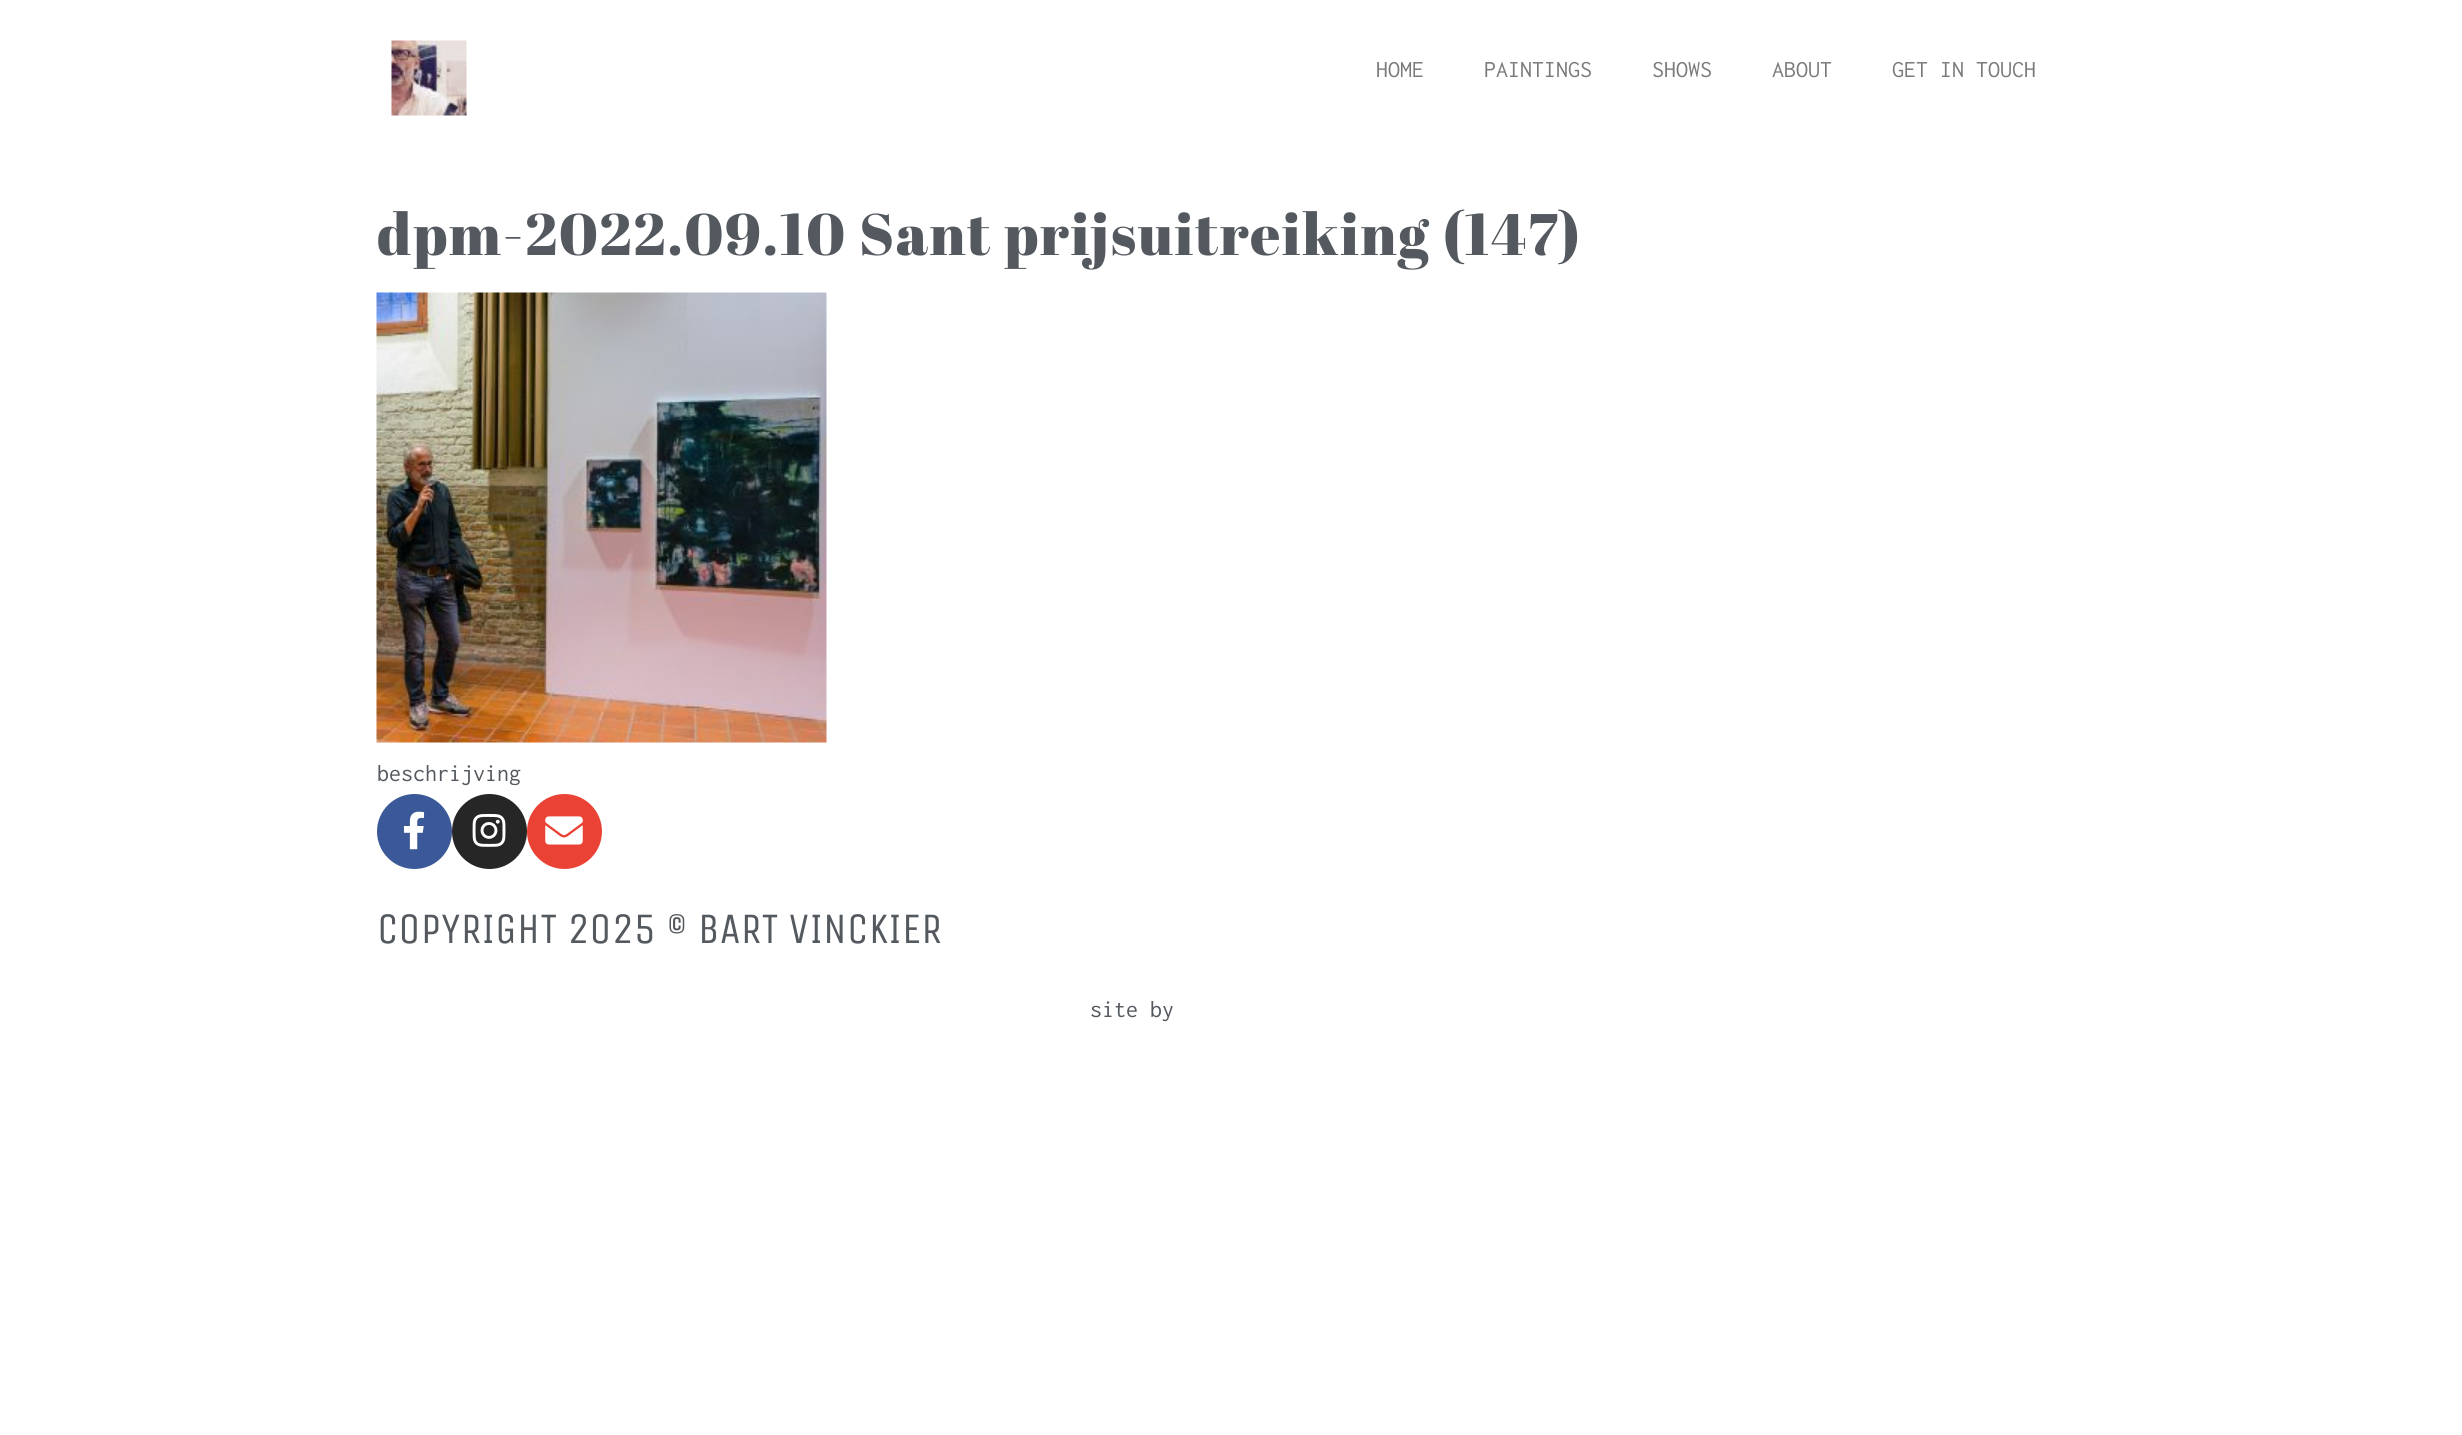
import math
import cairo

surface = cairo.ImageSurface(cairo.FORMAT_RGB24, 2462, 1435)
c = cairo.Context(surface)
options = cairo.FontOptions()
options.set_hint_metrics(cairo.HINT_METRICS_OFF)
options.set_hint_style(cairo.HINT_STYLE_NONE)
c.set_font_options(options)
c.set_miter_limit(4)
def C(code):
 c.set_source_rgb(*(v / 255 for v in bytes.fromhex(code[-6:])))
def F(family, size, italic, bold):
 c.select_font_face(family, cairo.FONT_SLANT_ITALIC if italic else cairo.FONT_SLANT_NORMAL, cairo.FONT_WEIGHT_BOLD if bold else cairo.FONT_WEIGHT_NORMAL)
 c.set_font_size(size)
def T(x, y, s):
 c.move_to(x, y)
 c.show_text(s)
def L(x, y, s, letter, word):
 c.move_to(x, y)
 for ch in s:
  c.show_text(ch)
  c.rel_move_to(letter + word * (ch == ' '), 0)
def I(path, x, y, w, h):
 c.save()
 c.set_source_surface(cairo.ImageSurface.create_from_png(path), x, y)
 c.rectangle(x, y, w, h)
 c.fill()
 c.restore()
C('ffffff')
c.paint()
I('1.png',391,40,76,76)
F('Inconsolata',24,0,0)
C('7a7a7a')
T(1376,77,'HOME')
T(1484,77,'PAINTINGS')
T(1652,77,'SHOWS')
T(1772,77,'ABOUT')
T(1892,77,'GET IN TOUCH')
F('Abril Fatface',58.5,0,0)
C('54595f')
L(377,255,'dpm-2022.09.10 Sant prijsuitreiking (147)',1.65,0)
I('2.png',376,292,451,451)
F('Inconsolata',24,0,0)
T(377,781,'beschrijving')
C('3b5998')
c.new_path()
c.arc(414.5,831.5,37.5,0,2 * math.pi)
c.fill()
I('3.png',403,811,22,39)
C('262626')
c.arc(489.5,831.5,37.5,0,2 * math.pi)
c.fill()
I('4.png',472,813,34,34)
C('ea4335')
c.arc(564.5,831.5,37.5,0,2 * math.pi)
c.fill()
I('5.png',545,816,38,29)
F('Unica One',43.5,0,0)
C('54595f')
T(377,943,'COPYRIGHT 2025 © BART VINCKIER')
F('Inconsolata',24,0,0)
T(1090,1017,'site by')
surface.write_to_png('o.png')
